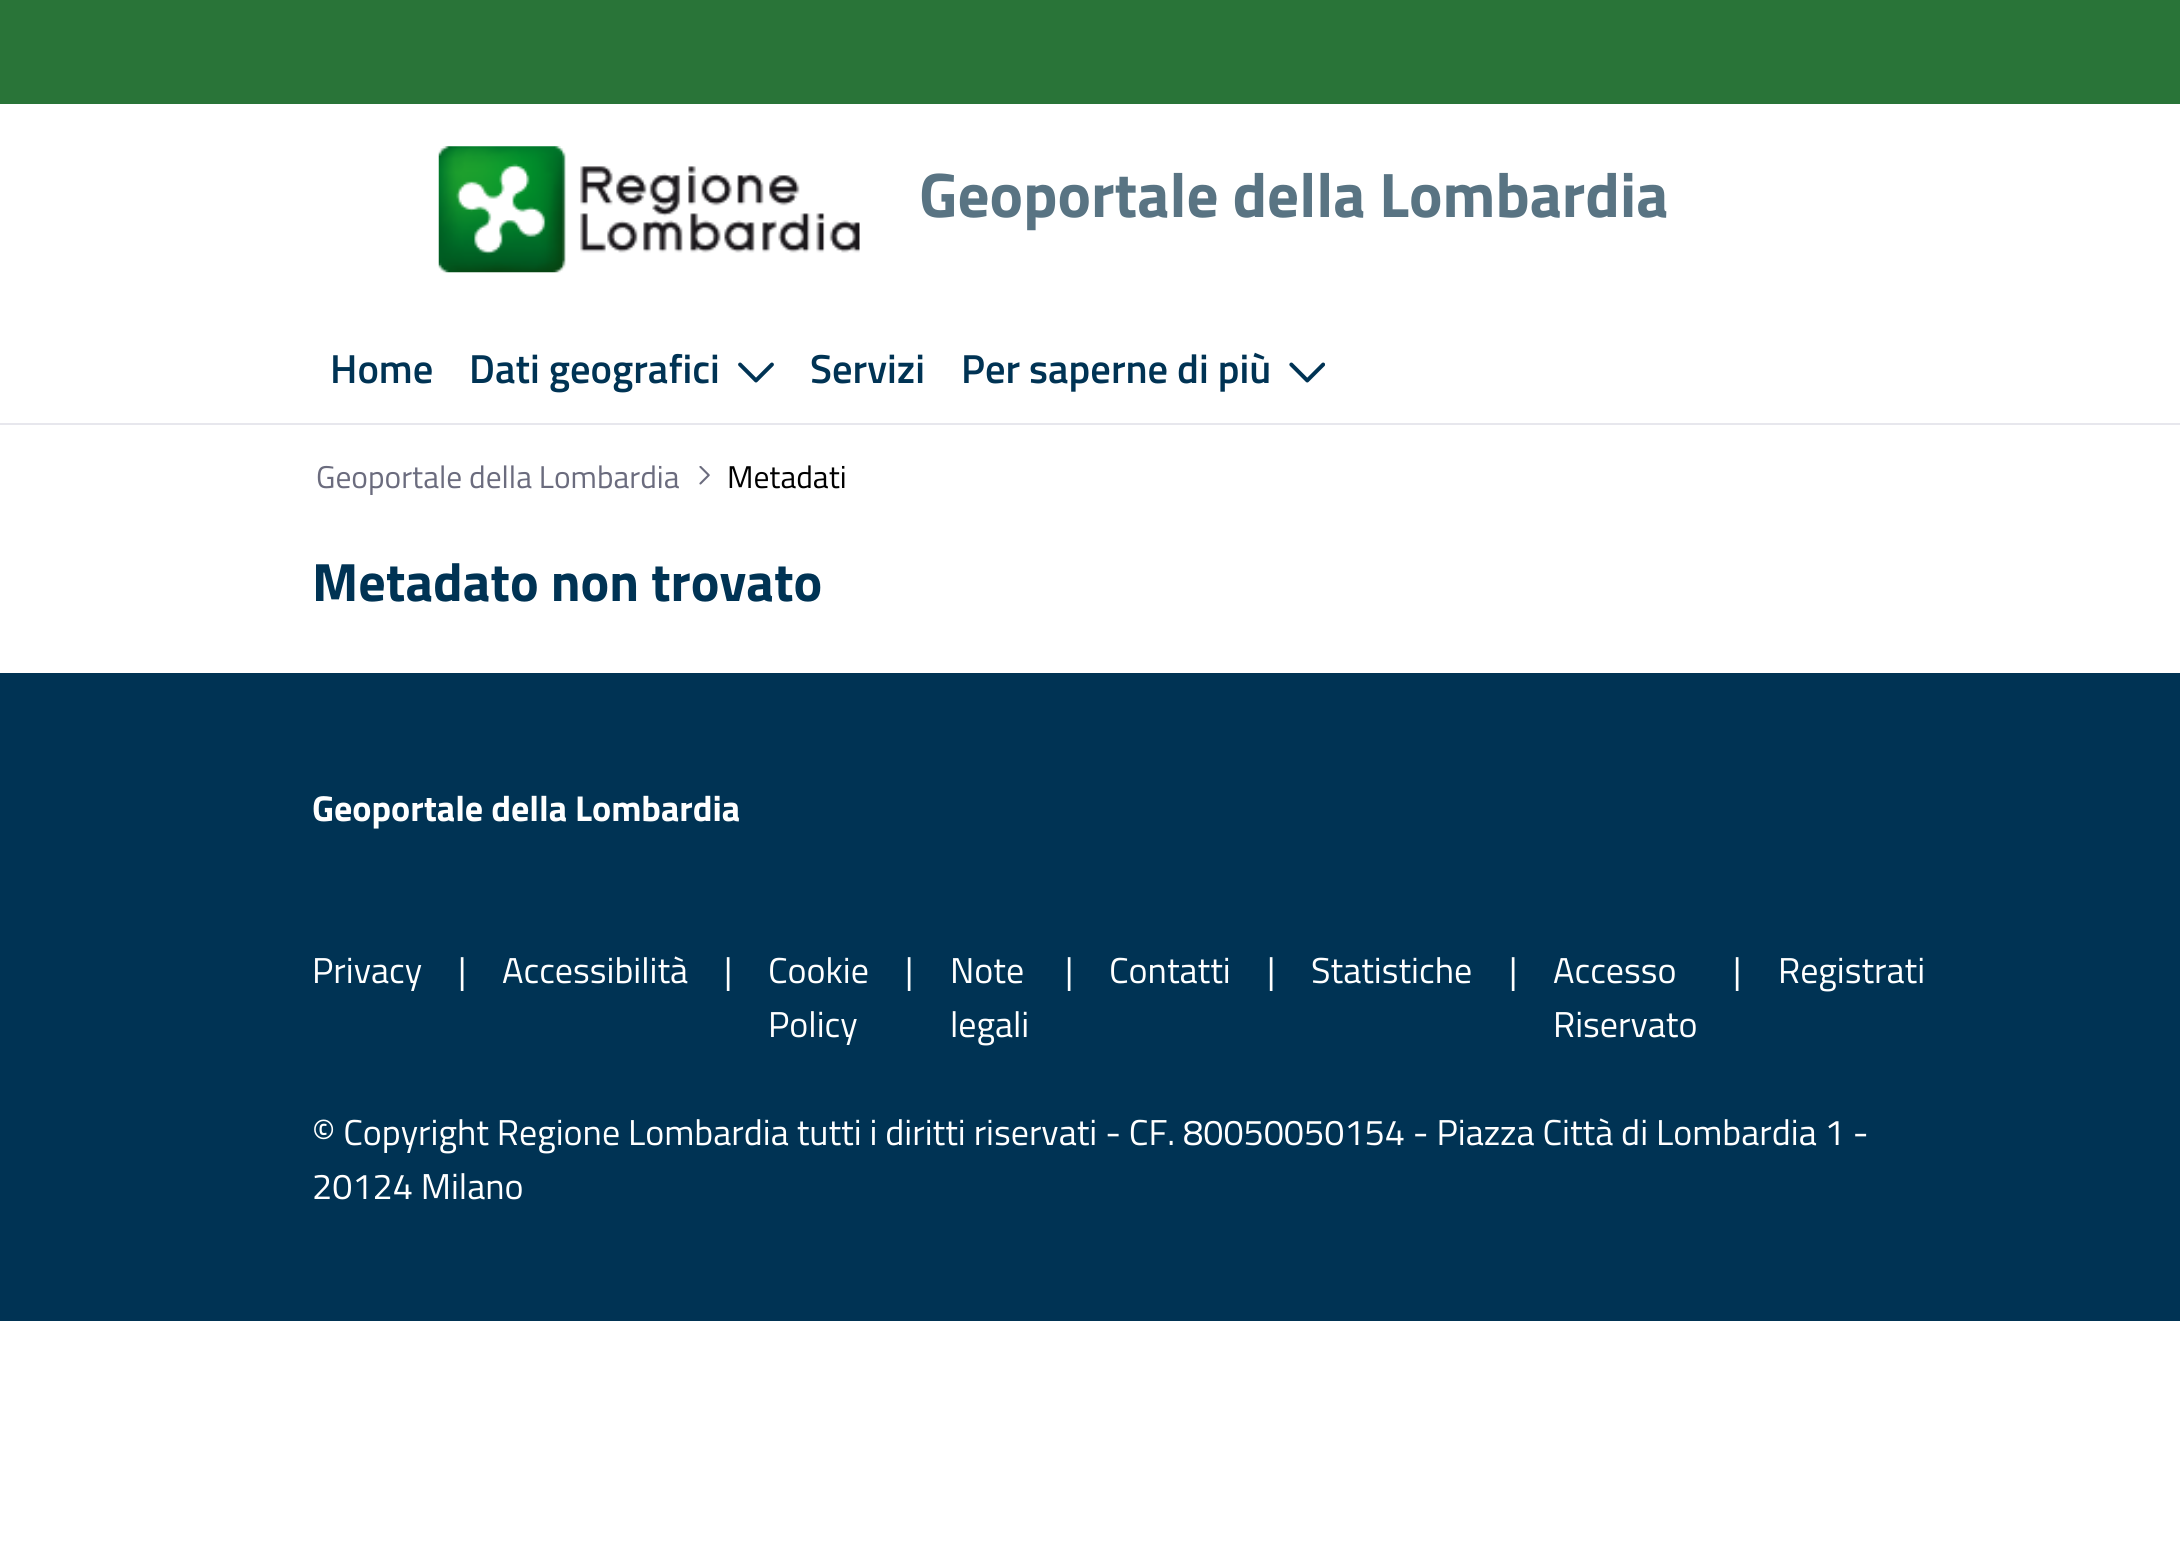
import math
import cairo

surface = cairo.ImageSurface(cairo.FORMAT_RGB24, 2180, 1567)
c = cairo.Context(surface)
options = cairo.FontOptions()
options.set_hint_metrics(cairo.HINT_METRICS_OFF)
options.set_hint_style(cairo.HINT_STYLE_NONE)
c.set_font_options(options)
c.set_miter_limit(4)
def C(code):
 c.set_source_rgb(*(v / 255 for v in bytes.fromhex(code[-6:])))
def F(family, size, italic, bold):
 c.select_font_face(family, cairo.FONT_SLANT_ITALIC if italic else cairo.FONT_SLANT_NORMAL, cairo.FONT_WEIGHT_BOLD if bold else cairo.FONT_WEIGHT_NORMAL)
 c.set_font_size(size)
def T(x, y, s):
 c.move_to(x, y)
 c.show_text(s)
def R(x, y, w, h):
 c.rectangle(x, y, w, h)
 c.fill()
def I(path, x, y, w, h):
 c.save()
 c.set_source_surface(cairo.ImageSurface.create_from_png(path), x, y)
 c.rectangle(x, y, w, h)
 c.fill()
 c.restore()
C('ffffff')
c.paint()
C('297438')
R(0,0,2180,104)
I('1.png',438,146,422,127)
F('Titillium Web',63,0,1)
C('597483')
T(919,217,'Geoportale della Lombardia')
C('e7e7ed')
R(0,423,2180,2)
F('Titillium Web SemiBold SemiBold',40.5,0,0)
C('003354')
T(330,383,'Home')
T(469,383,'Dati geografici')
I('2.png',738,362,36,21)
T(810,383,'Servizi')
T(961,383,'Per saperne di più')
I('3.png',1289,362,36,21)
F('Titillium Web',31.5,0,0)
C('6b6c7e')
T(316,488,'Geoportale della Lombardia')
I('4.png',699,466,11,19)
C('000000')
T(727,488,'Metadati')
F('Titillium Web',54,0,1)
C('003354')
T(312,601,'Metadato non trovato')
R(0,673,2180,648)
F('Titillium Web',36,0,1)
C('ffffff')
T(312,821,'Geoportale della Lombardia')
F('Titillium Web',36,0,0)
T(312,983,'Privacy')
T(458,983,'|')
T(502,983,'Accessibilità')
T(724,983,'|')
T(768,983,'Cookie')
T(768,1037,'Policy')
T(905,983,'|')
T(950,983,'Note')
T(950,1037,'legali')
T(1065,983,'|')
T(1109,983,'Contatti')
T(1267,983,'|')
T(1311,983,'Statistiche')
T(1509,983,'|')
T(1553,983,'Accesso')
T(1553,1037,'Riservato')
T(1733,983,'|')
T(1778,983,'Registrati')
T(312,1145,'© Copyright Regione Lombardia tutti i diritti riservati - CF. 80050050154 - Piazza Città di Lombardia 1 -')
T(312,1199,'20124 Milano')
surface.write_to_png('o.png')
